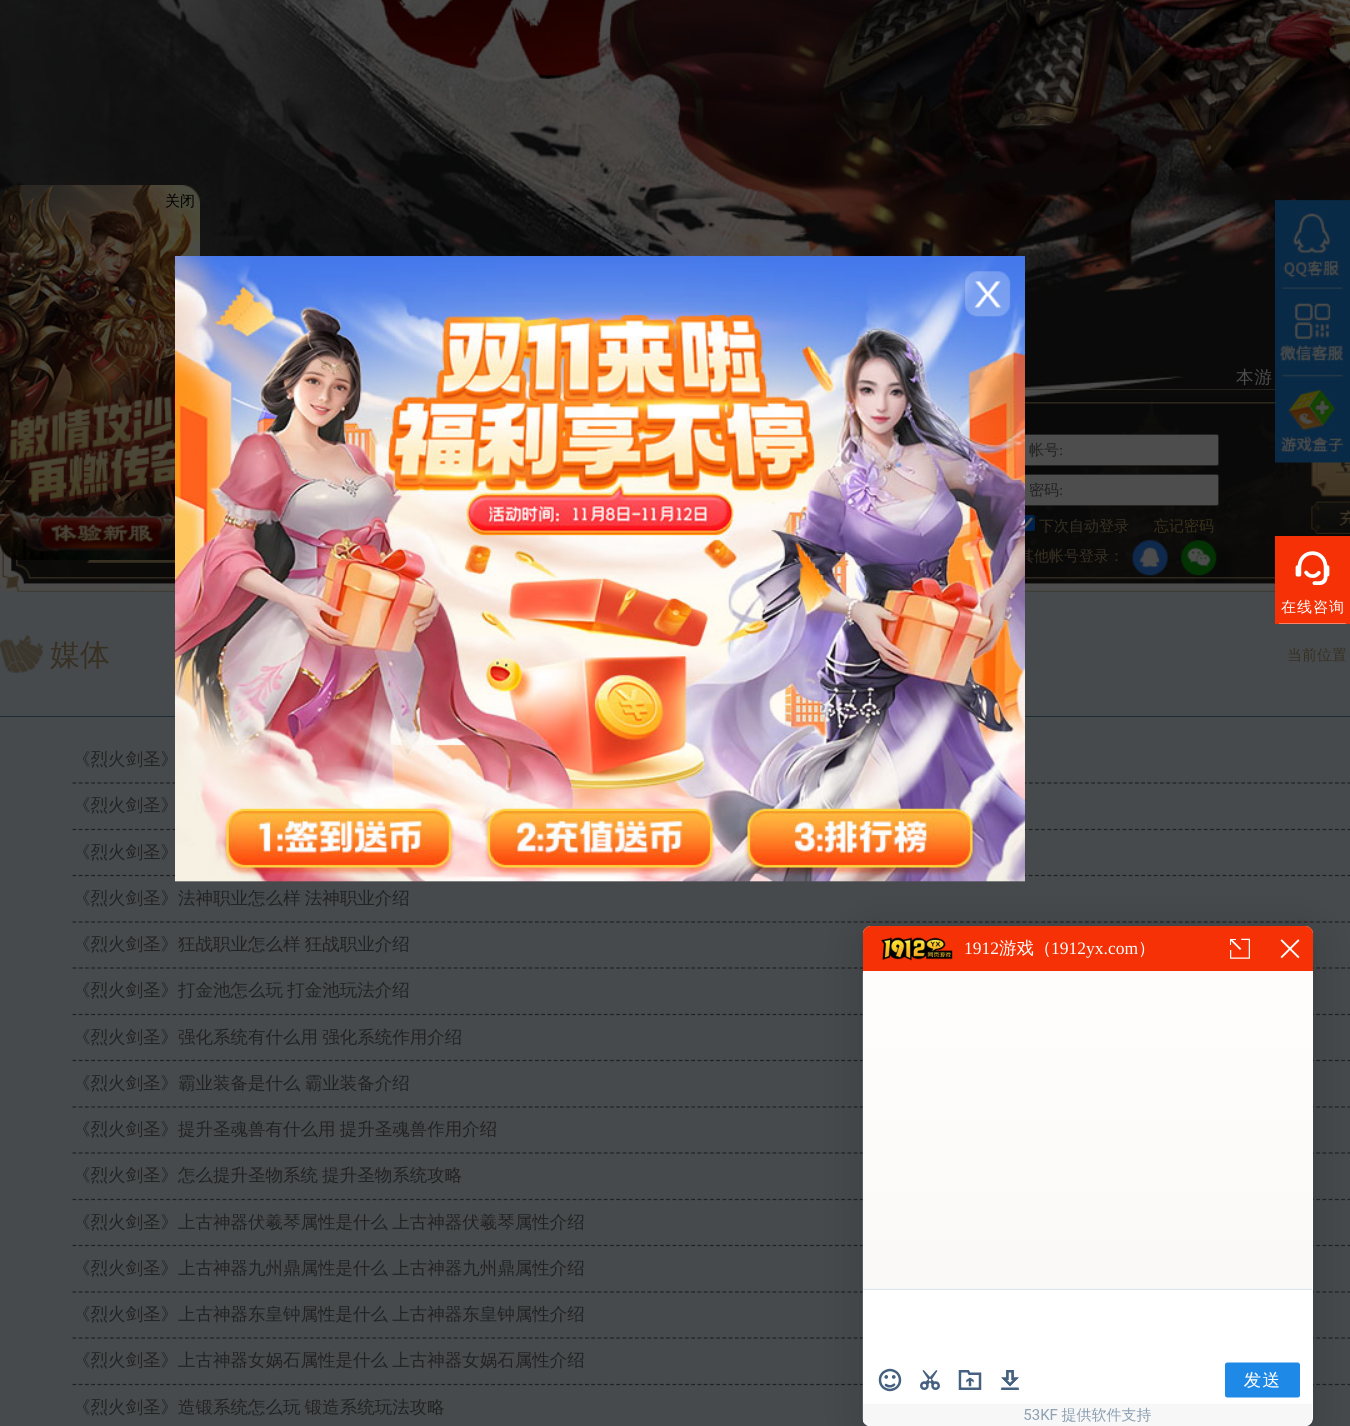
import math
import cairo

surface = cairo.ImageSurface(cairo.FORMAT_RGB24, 1350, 1426)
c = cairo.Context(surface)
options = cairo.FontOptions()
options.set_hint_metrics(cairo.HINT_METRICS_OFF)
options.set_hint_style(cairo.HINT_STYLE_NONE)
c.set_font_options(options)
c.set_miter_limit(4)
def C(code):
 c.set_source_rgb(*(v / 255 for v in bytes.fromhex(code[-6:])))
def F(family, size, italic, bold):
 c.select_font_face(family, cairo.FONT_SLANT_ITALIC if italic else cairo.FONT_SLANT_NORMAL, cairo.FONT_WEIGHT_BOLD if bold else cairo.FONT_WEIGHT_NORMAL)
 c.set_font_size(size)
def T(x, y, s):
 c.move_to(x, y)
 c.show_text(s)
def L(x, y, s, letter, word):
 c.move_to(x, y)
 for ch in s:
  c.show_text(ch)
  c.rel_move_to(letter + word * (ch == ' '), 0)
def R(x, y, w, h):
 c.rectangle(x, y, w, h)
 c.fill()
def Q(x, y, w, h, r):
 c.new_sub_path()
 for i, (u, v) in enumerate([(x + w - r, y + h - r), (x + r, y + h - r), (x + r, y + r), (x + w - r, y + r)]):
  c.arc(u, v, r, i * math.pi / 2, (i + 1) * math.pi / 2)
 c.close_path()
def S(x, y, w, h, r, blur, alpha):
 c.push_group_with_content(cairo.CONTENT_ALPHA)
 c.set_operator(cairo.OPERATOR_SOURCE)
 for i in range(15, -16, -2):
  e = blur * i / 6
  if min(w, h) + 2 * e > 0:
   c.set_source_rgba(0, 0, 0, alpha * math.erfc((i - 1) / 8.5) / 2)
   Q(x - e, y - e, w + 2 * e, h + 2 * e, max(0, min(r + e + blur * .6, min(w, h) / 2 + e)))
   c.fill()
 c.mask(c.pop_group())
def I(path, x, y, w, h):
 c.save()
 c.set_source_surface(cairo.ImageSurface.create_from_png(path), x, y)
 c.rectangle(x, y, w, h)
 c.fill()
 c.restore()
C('464a4d')
c.paint()
I('5.png',0,0,1350,592)
I('6.png',2,389,1348,203)
I('1.png',0,185,200,375)
F('WenQuanYi Zen Hei Medium',15,0,0)
C('000000')
T(165,206,'关闭')
I('10.png',1311,462,39,35)
I('2.png',1275,199,75,264)
C('4d4d4d')
Q(1019.5,434.5,199,31,2)
c.fill_preserve()
C('232323')
c.set_line_width(1)
c.stroke()
C('4d4d4d')
Q(1019.5,474.5,199,31,2)
c.fill_preserve()
C('232323')
c.stroke()
C('00234d')
Q(1019,515,16,16,2.5)
c.fill()
c.new_path()
c.move_to(1022,523)
c.line_to(1025,526.5)
c.line_to(1032,518)
C('4d4d4d')
c.set_line_width(2.6)
c.stroke()
C('383022')
T(1019,561,'其他帐号登录：')
C('1c2d33')
R(0,716,1350,1)
c.new_path()
c.move_to(72.5,783)
c.line_to(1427.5,783)
C('212121')
c.set_line_width(1.2)
c.set_dash([3.75,2.5])
c.stroke()
c.new_path()
c.move_to(72.5,829.5)
c.line_to(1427.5,829.5)
c.stroke()
c.new_path()
c.move_to(72.5,875.5)
c.line_to(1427.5,875.5)
c.stroke()
I('3.png',175,256,850,626)
I('4.png',965,271,46,46)
F('WenQuanYi Zen Hei Medium',17.5,0,0)
C('4d4d4d')
L(1236,383,'本游',1,0)
I('7.png',87,560,88,3)
F('WenQuanYi Zen Hei Medium',15,0,0)
C('222222')
T(1029,455,'帐号')
F('Liberation Serif',15,0,0)
T(1059,455,':')
F('WenQuanYi Zen Hei Medium',15,0,0)
T(1029,495,'密码')
F('Liberation Serif',15,0,0)
T(1059,495,':')
F('WenQuanYi Zen Hei Medium',15,0,0)
C('383022')
T(1039,531,'下次自动登录')
C('38301a')
T(1154,531,'忘记密码')
I('8.png',1132,540,36,36)
I('9.png',1181,540,36,36)
I('11.png',1311,501,39,33)
I('12.png',0,635,43,38)
F('WenQuanYi Zen Hei Medium',30,0,0)
C('383022')
T(50,665,'媒体')
F('WenQuanYi Zen Hei Medium',15,0,0)
T(1287,660,'当前位置')
F('WenQuanYi Zen Hei Medium',17.5,0,0)
C('222222')
L(73,765,'《烈火剑圣》',0,-1)
L(73,811,'《烈火剑圣》',0,-1)
L(73,858,'《烈火剑圣》',0,-1)
c.new_path()
c.move_to(72.5,922)
c.line_to(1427.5,922)
C('212121')
c.stroke()
C('222222')
L(73,904,'《烈火剑圣》法神职业怎么样 法神职业介绍',0,-1)
c.new_path()
c.move_to(72.5,968)
c.line_to(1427.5,968)
C('212121')
c.stroke()
C('222222')
L(73,950,'《烈火剑圣》狂战职业怎么样 狂战职业介绍',0,-1)
c.new_path()
c.move_to(72.5,1014.5)
c.line_to(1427.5,1014.5)
C('212121')
c.stroke()
C('222222')
L(73,996,'《烈火剑圣》打金池怎么玩 打金池玩法介绍',0,-1)
c.new_path()
c.move_to(72.5,1060.5)
c.line_to(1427.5,1060.5)
C('212121')
c.stroke()
C('222222')
L(73,1043,'《烈火剑圣》强化系统有什么用 强化系统作用介绍',0,-1)
c.new_path()
c.move_to(72.5,1107)
c.line_to(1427.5,1107)
C('212121')
c.stroke()
C('222222')
L(73,1089,'《烈火剑圣》霸业装备是什么 霸业装备介绍',0,-1)
c.new_path()
c.move_to(72.5,1153)
c.line_to(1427.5,1153)
C('212121')
c.stroke()
C('222222')
L(73,1135,'《烈火剑圣》提升圣魂兽有什么用 提升圣魂兽作用介绍',0,-1)
c.new_path()
c.move_to(72.5,1199.5)
c.line_to(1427.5,1199.5)
C('212121')
c.stroke()
C('222222')
L(73,1181,'《烈火剑圣》怎么提升圣物系统 提升圣物系统攻略',0,-1)
c.new_path()
c.move_to(72.5,1245.5)
c.line_to(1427.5,1245.5)
C('212121')
c.stroke()
C('222222')
L(73,1228,'《烈火剑圣》上古神器伏羲琴属性是什么 上古神器伏羲琴属性介绍',0,-1)
c.new_path()
c.move_to(72.5,1292)
c.line_to(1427.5,1292)
C('212121')
c.stroke()
C('222222')
L(73,1274,'《烈火剑圣》上古神器九州鼎属性是什么 上古神器九州鼎属性介绍',0,-1)
c.new_path()
c.move_to(72.5,1338)
c.line_to(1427.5,1338)
C('212121')
c.stroke()
C('222222')
L(73,1320,'《烈火剑圣》上古神器东皇钟属性是什么 上古神器东皇钟属性介绍',0,-1)
c.new_path()
c.move_to(72.5,1384.5)
c.line_to(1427.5,1384.5)
C('212121')
c.stroke()
C('222222')
L(73,1366,'《烈火剑圣》上古神器女娲石属性是什么 上古神器女娲石属性介绍',0,-1)
L(73,1413,'《烈火剑圣》造锻系统怎么玩 锻造系统玩法攻略',0,-1)
C('f53105')
R(1275,536,75,88)
I('13.png',1295,551,35,34)
F('WenQuanYi Zen Hei Medium',15,0,0)
C('ffffff')
L(1281,612,'在线咨询',1,0)
C('f98369')
R(1279,623,67,1)
C('000000')
S(863,933,450,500,8,25,.16)
C('ffffff')
Q(863,926,450,500,8)
c.fill()
C('f53105')
c.new_path()
c.move_to(871,926)
c.line_to(1305,926)
c.curve_to(1309.5,926,1313,929.5,1313,934)
c.line_to(1313,971)
c.line_to(863,971)
c.line_to(863,934)
c.curve_to(863,929.5,866.5,926,871,926)
c.close_path()
c.fill()
I('14.png',881,937,72,24)
F('Liberation Serif',17.5,0,0)
C('ffffff')
T(964,954,'1912')
F('WenQuanYi Zen Hei Medium',17.5,0,0)
T(999,954,'游戏（')
F('Liberation Serif',17.5,0,0)
T(1051,954,'1912yx.com')
F('WenQuanYi Zen Hei Medium',17.5,0,0)
T(1138,954,'）')
I('15.png',1230,938,20,21)
I('16.png',1280,939,20,20)
I('17.png',862,971,450,455)
surface.write_to_png('o.png')
